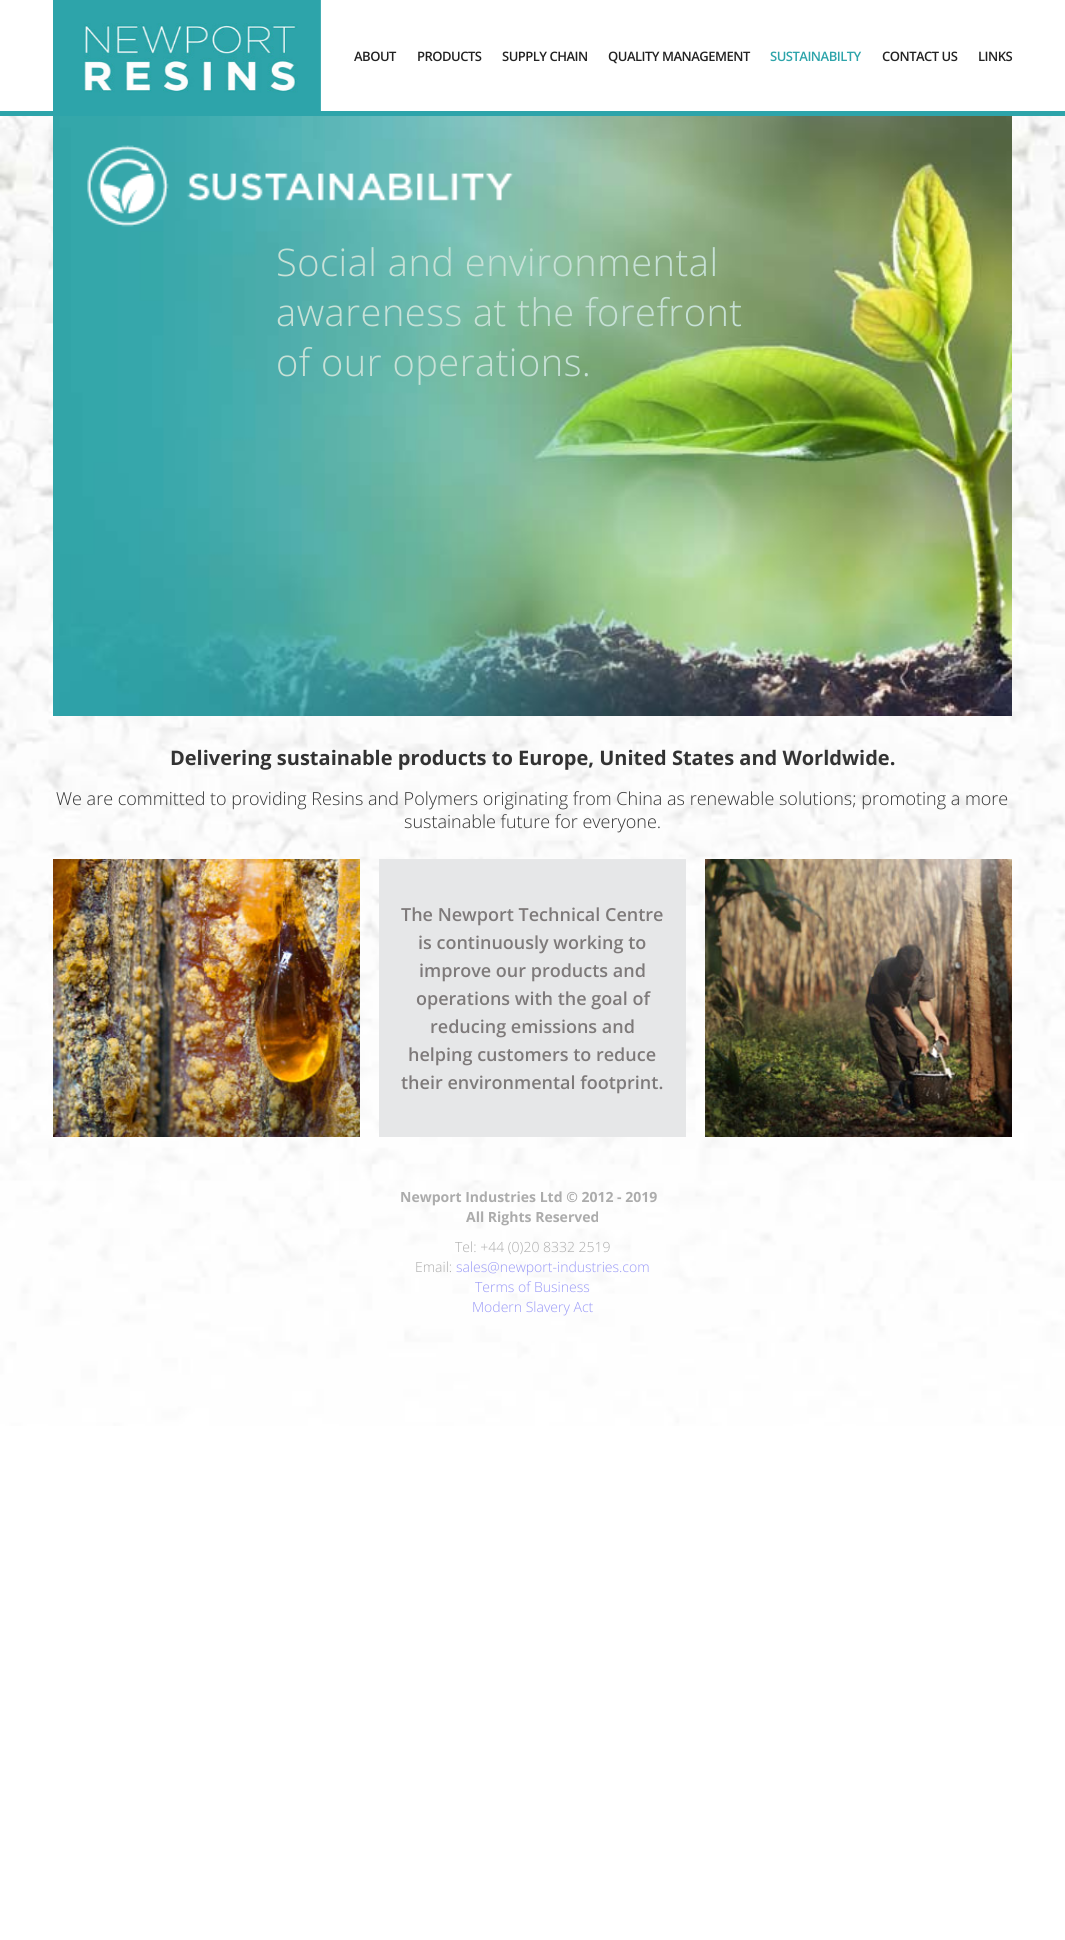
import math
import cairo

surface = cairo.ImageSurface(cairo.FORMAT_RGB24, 1065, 1940)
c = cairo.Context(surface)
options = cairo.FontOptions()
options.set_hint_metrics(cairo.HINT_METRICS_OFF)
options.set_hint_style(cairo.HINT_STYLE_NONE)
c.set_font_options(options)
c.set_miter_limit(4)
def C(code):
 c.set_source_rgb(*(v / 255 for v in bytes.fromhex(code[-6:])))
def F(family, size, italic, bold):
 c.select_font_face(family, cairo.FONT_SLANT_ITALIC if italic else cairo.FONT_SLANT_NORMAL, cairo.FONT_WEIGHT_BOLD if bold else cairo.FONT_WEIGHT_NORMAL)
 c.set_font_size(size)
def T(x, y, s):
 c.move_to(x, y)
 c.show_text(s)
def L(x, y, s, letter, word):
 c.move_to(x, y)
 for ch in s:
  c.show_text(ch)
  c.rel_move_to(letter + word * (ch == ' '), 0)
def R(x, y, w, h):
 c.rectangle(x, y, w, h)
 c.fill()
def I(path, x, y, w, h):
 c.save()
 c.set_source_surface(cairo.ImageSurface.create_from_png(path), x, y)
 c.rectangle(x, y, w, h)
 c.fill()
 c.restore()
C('ffffff')
c.paint()
I('1.png',0,116,1065,1310)
C('2da4aa')
R(0,111,1065,5)
I('2.png',53,0,268,111)
F('Open Sans SemiBold',13,0,0)
C('222222')
L(354,61,'ABOUT',-.5,0)
L(417,61,'PRODUCTS',-.5,0)
L(502,61,'SUPPLY CHAIN',-.5,0)
L(608,61,'QUALITY MANAGEMENT',-.5,0)
C('2da4aa')
L(770,61,'SUSTAINABILTY',-.5,0)
C('222222')
L(882,61,'CONTACT US',-.5,0)
L(978,61,'LINKS',-.5,0)
I('3.png',53,116,959,600)
I('4.png',87,145,427,82)
F('Open Sans Light',38,0,0)
C('c7e1d7')
L(276,276,'Social and environmental',.5,0)
L(276,326,'awareness at the forefront',.5,0)
L(276,376,'of our operations.',.5,0)
F('Open Sans',20,0,1)
C('333333')
T(170,765,'Delivering sustainable products to Europe, United States and Worldwide.')
F('Open Sans Light',18,0,0)
T(56,805,'We are committed to providing Resins and Polymers originating from China as renewable solutions; promoting a more')
T(404,828,'sustainable future for everyone.')
I('5.png',53,859,307,278)
C('e6e7e8')
R(379,859,307,278)
F('Open Sans SemiBold',18,0,0)
C('7e7a7a')
T(401,921,'The Newport Technical Centre')
T(418,949,'is continuously working to')
T(419,977,'improve our products and')
T(416,1005,'operations with the goal of')
T(430,1033,'reducing emissions and')
T(408,1061,'helping customers to reduce')
T(401,1089,'their environmental footprint.')
I('6.png',705,859,307,278)
F('Open Sans',14,0,1)
C('acacac')
T(400,1202,'Newport Industries Ltd © 2012 - 2019')
T(466,1222,'All Rights Reserved')
F('Open Sans Light',14,0,0)
T(455,1252,'Tel: +44 (0)20 8332 2519')
T(415,1272,'Email:')
C('9898f7')
T(456,1272,'sales@newport-industries.com')
T(475,1292,'Terms of Business')
T(472,1312,'Modern Slavery Act')
surface.write_to_png('o.png')
